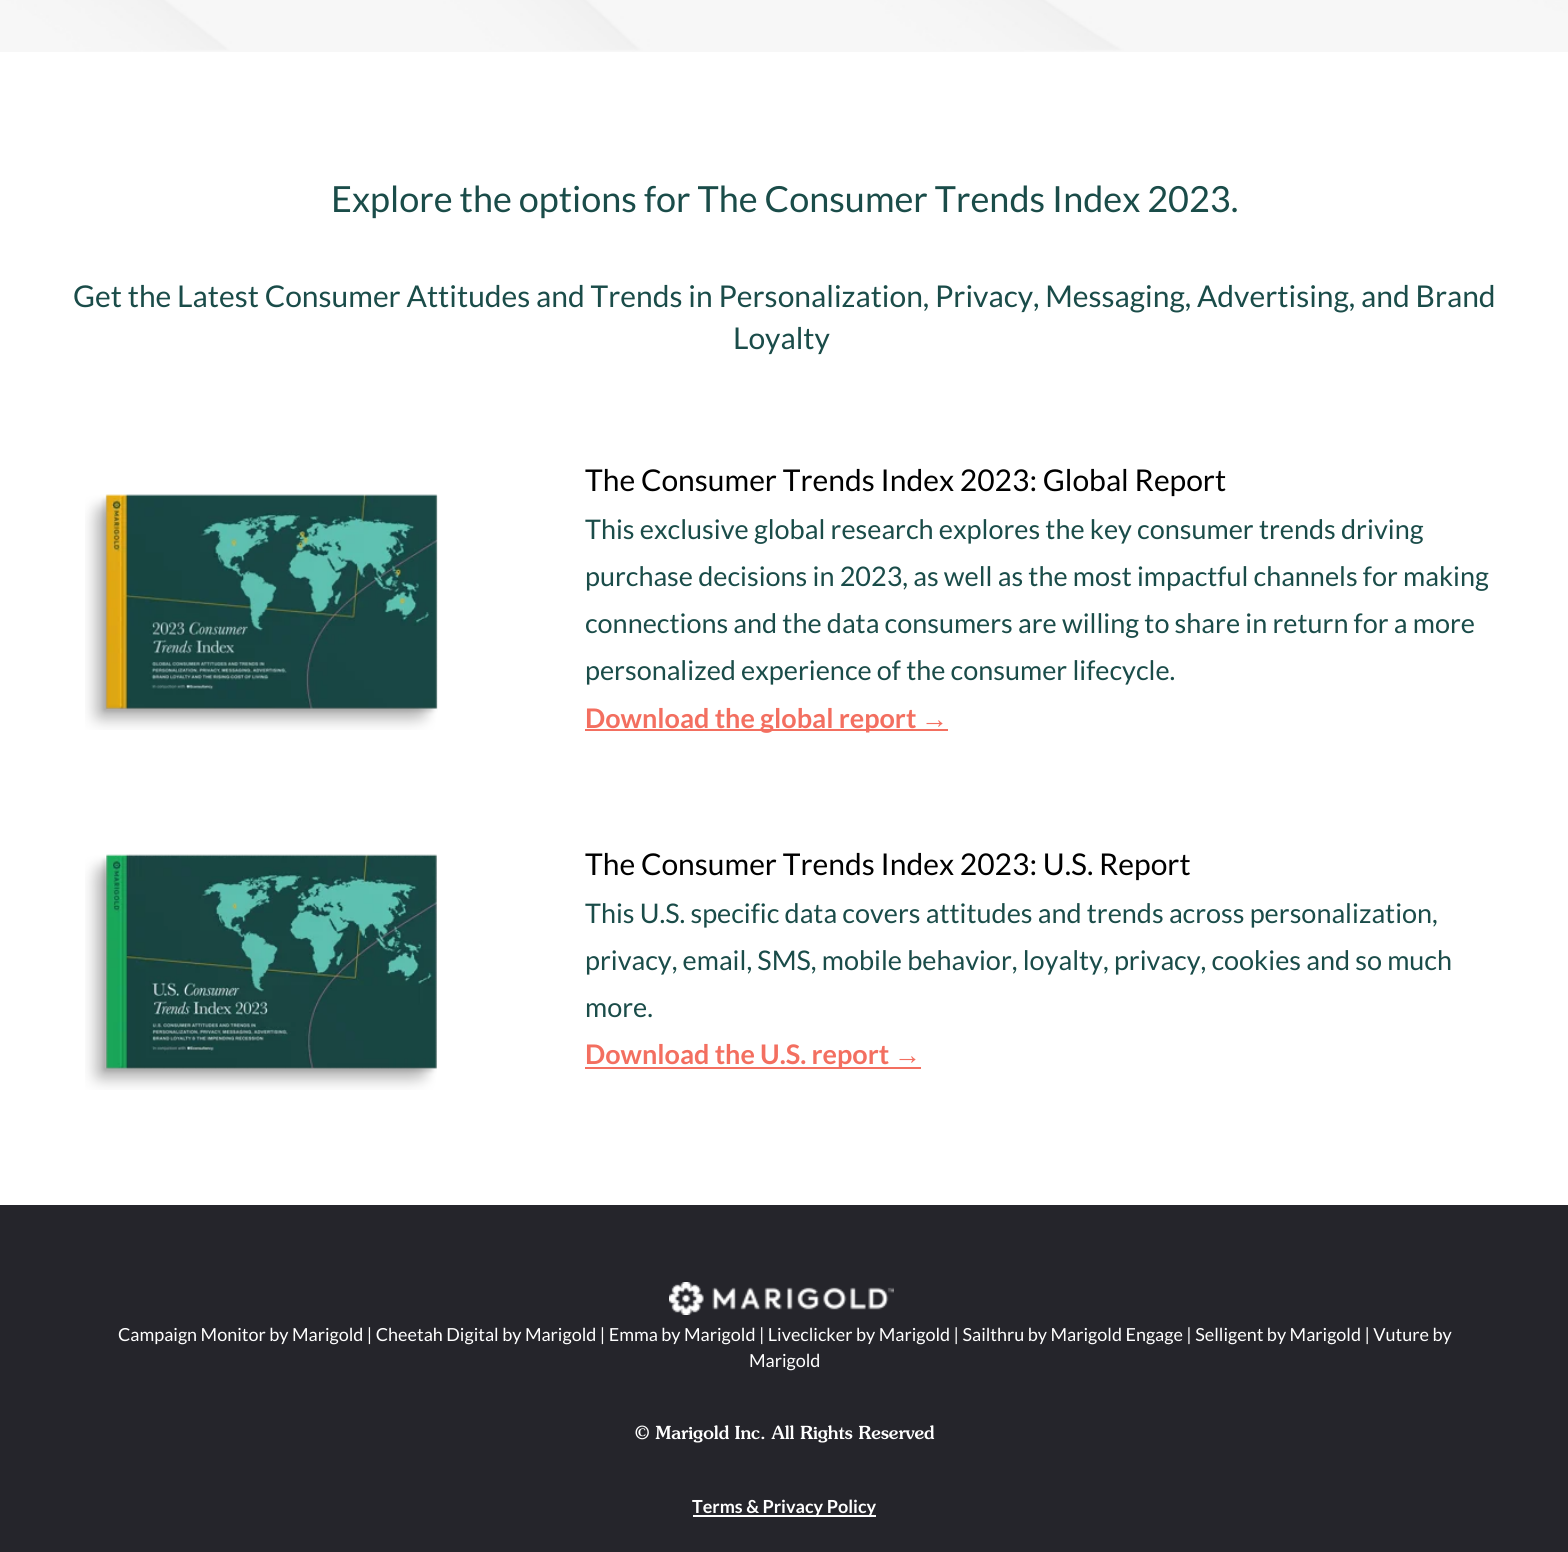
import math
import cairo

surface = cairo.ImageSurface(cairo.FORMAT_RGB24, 1568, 1552)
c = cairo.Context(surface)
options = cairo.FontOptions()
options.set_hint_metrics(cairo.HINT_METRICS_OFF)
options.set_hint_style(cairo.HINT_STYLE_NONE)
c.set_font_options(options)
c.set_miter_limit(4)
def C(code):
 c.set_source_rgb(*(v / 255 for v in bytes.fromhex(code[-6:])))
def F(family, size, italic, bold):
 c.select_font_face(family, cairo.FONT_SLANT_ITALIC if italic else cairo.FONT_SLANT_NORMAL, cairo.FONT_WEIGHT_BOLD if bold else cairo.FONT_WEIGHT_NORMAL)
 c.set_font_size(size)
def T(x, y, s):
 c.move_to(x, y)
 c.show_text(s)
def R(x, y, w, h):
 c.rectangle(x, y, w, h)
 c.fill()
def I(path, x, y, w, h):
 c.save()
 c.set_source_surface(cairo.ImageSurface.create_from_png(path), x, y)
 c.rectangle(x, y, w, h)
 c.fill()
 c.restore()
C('ffffff')
c.paint()
I('1.png',0,0,1568,52)
F('Lato',36,0,0)
C('1a4c49')
T(331,212,'Explore the options for The Consumer Trends Index 2023.')
F('Lato',30,0,0)
T(73,307,'Get the Latest Consumer Attitudes and Trends in Personalization, Privacy, Messaging, Advertising, and Brand')
T(733,349,'Loyalty')
I('2.png',85,494,353,236)
C('000000')
T(585,491,'The Consumer Trends Index 2023: Global Report')
F('Lato',27,0,0)
C('1a4c49')
T(585,539,'This exclusive global research explores the key consumer trends driving')
T(585,586,'purchase decisions in 2023, as well as the most impactful channels for making')
T(585,633,'connections and the data consumers are willing to share in return for a more')
T(585,680,'personalized experience of the consumer lifecycle.')
C('f36f60')
R(585,729,363,2)
F('Lato',27,0,1)
T(585,728,'Download the global report')
F('Liberation Sans',27,0,1)
T(921,728,'→')
I('3.png',85,854,352,236)
F('Lato',30,0,0)
C('000000')
T(585,875,'The Consumer Trends Index 2023: U.S. Report')
F('Lato',27,0,0)
C('1a4c49')
T(585,923,'This U.S. specific data covers attitudes and trends across personalization,')
T(585,970,'privacy, email, SMS, mobile behavior, loyalty, privacy, cookies and so much')
T(585,1017,'more.')
C('f36f60')
R(585,1067,336,2)
F('Lato',27,0,1)
T(585,1064,'Download the U.S. report')
F('Liberation Sans',27,0,1)
T(894,1064,'→')
C('25252b')
R(0,1205,1568,347)
I('4.png',669,1282,225,33)
F('Lato',18,0,0)
C('ffffff')
T(118,1341,'Campaign Monitor by Marigold | Cheetah Digital by Marigold | Emma by Marigold | Liveclicker by Marigold | Sailthru by Marigold Engage | Selligent by Marigold | Vuture by')
T(749,1367,'Marigold')
F('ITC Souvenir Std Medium',18,0,0)
T(635,1439,'© Marigold Inc. All Rights Reserved')
R(693,1515,183,2)
F('Lato',18,0,1)
T(692,1513,'Terms & Privacy Policy')
surface.write_to_png('o.png')
